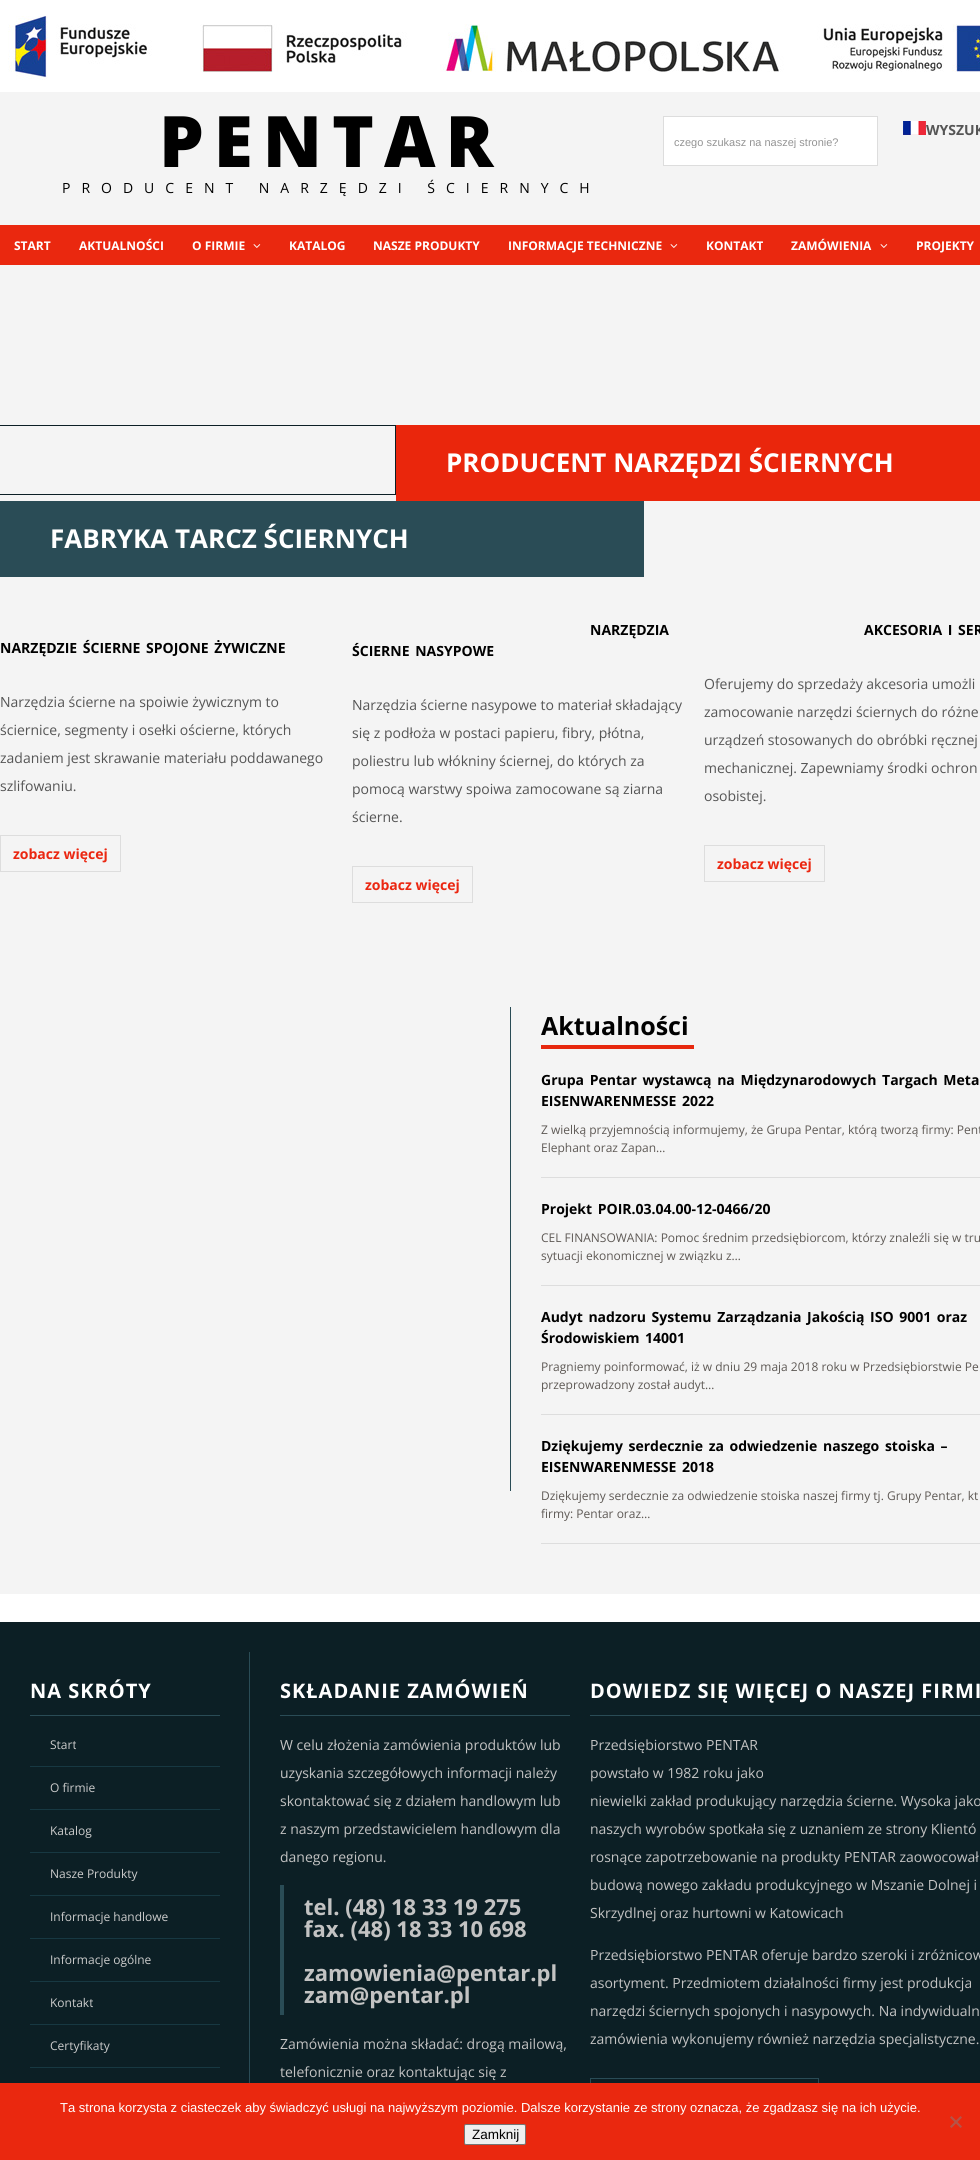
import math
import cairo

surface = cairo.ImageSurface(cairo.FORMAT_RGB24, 980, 2160)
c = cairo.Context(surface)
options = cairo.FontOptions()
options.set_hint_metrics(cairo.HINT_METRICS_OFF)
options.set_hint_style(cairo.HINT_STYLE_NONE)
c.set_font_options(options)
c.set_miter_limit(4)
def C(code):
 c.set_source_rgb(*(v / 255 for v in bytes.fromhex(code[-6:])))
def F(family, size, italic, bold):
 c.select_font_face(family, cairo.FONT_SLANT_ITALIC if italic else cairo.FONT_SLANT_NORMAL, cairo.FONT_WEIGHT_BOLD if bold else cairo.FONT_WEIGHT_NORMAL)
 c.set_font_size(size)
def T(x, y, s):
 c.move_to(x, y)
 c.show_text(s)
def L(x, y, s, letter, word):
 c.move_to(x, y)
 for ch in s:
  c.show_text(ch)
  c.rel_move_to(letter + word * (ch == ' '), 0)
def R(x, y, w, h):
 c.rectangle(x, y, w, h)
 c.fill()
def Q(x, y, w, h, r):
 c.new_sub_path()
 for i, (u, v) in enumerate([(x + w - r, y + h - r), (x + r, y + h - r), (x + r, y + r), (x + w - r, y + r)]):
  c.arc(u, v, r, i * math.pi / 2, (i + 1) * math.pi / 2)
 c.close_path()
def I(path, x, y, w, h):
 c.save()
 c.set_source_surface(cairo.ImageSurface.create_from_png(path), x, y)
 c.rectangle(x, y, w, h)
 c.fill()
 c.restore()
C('f4f4f4')
c.paint()
I('1.png',0,0,980,92)
F('Open Sans ExtraBold',71,0,0)
C('000000')
L(159,167,'PENTAR',10,0)
F('Open Sans',14,0,0)
L(62,193,'PRODUCENT NARZĘDZI ŚCIERNYCH',11,0)
I('2.png',903,121,23,14)
F('Open Sans',14,0,1)
C('555555')
T(926,135,'WYSZUK')
C('ffffff')
c.rectangle(663.5,116.5,214,49)
c.fill_preserve()
C('dddddd')
c.set_line_width(1)
c.stroke()
c.save()
c.rectangle(674,136,179,12)
c.clip()
F('Liberation Sans',11,0,0)
C('949494')
T(674,146,'czego szukasz na naszej stronie?')
c.restore()
C('ea280f')
R(0,225,980,40)
F('Open Sans',12,0,1)
C('ffffff')
T(14,250,'START')
T(79,250,'AKTUALNOŚCI')
T(192,250,'O FIRMIE')
I('3.png',253,244,8,4)
T(289,250,'KATALOG')
T(373,250,'NASZE PRODUKTY')
T(508,250,'INFORMACJE TECHNICZNE')
I('3.png',670,244,8,4)
T(706,250,'KONTAKT')
T(791,250,'ZAMÓWIENIA')
I('3.png',880,244,8,4)
T(916,250,'PROJEKTY')
C('0c1f25')
R(0,425,396,1)
R(395,425,1,70)
R(0,494,396,1)
C('ea260c')
R(396,425,584,76)
F('Open Sans',26,0,1)
C('ffffff')
T(446,472,'PRODUCENT NARZĘDZI ŚCIERNYCH')
C('2a4c56')
R(0,501,644,76)
C('ffffff')
T(50,548,'FABRYKA TARCZ ŚCIERNYCH')
F('Open Sans',14,0,1)
C('000000')
L(0,653,'NARZĘDZIE ŚCIERNE SPOJONE ŻYWICZNE',0,2)
F('Open Sans',14,0,0)
C('555555')
T(0,707,'Narzędzia ścierne na spoiwie żywicznym to')
T(0,735,'ściernice, segmenty i osełki ościerne, których')
T(0,763,'zadaniem jest skrawanie materiału poddawanego')
T(0,791,'szlifowaniu.')
c.rectangle(.5,835.5,120,36)
C('dddddd')
c.stroke()
F('Open Sans',14,0,1)
C('eb2711')
T(13,859,'zobacz więcej')
C('000000')
T(590,635,'NARZĘDZIA')
L(352,656,'ŚCIERNE NASYPOWE',0,2)
F('Open Sans',14,0,0)
C('555555')
T(352,710,'Narzędzia ścierne nasypowe to materiał składający')
T(352,738,'się z podłoża w postaci papieru, fibry, płótna,')
T(352,766,'poliestru lub włókniny ściernej, do których za')
T(352,794,'pomocą warstwy spoiwa zamocowane są ziarna')
T(352,822,'ścierne.')
c.rectangle(352.5,866.5,120,36)
C('dddddd')
c.stroke()
F('Open Sans',14,0,1)
C('eb2711')
T(365,890,'zobacz więcej')
C('000000')
L(864,635,'AKCESORIA I SER',0,2)
F('Open Sans',14,0,0)
C('555555')
T(704,689,'Oferujemy do sprzedaży akcesoria umożli')
T(704,717,'zamocowanie narzędzi ściernych do różne')
T(704,745,'urządzeń stosowanych do obróbki ręcznej')
T(704,773,'mechanicznej. Zapewniamy środki ochron')
T(704,801,'osobistej.')
c.rectangle(704.5,845.5,120,36)
C('dddddd')
c.stroke()
F('Open Sans',14,0,1)
C('eb2711')
T(717,869,'zobacz więcej')
C('2a4c56')
R(510,1007,1,484)
C('e7280e')
R(541,1045,153,4)
F('Open Sans',25,0,1)
C('000000')
T(541,1035,'Aktualności')
C('dddddd')
R(541,1177,439,1)
F('Open Sans',14,0,1)
C('000000')
L(541,1085,'Grupa Pentar wystawcą na Międzynarodowych Targach Meta',0,2)
L(541,1106,'EISENWARENMESSE 2022',0,2)
F('Open Sans',12,0,0)
C('5e5955')
T(541,1134,'Z wielką przyjemnością informujemy, że Grupa Pentar, którą tworzą firmy: Pent')
T(541,1152,'Elephant oraz Zapan…')
C('dddddd')
R(541,1285,439,1)
F('Open Sans',14,0,1)
C('000000')
L(541,1214,'Projekt POIR.03.04.00-12-0466/20',0,2)
F('Open Sans',12,0,0)
C('5e5955')
T(541,1242,'CEL FINANSOWANIA: Pomoc średnim przedsiębiorcom, którzy znaleźli się w tru')
T(541,1260,'sytuacji ekonomicznej w związku z…')
C('dddddd')
R(541,1414,439,1)
F('Open Sans',14,0,1)
C('000000')
L(541,1322,'Audyt nadzoru Systemu Zarządzania Jakością ISO 9001 oraz',0,2)
L(541,1343,'Środowiskiem 14001',0,2)
F('Open Sans',12,0,0)
C('5e5955')
T(541,1371,'Pragniemy poinformować, iż w dniu 29 maja 2018 roku w Przedsiębiorstwie Pe')
T(541,1389,'przeprowadzony został audyt…')
C('dddddd')
R(541,1543,439,1)
F('Open Sans',14,0,1)
C('000000')
L(541,1451,'Dziękujemy serdecznie za odwiedzenie naszego stoiska –',0,2)
L(541,1472,'EISENWARENMESSE 2018',0,2)
F('Open Sans',12,0,0)
C('5e5955')
T(541,1500,'Dziękujemy serdecznie za odwiedzenie stoiska naszej firmy tj. Grupy Pentar, kt')
T(541,1518,'firmy: Pentar oraz…')
C('ffffff')
R(0,1594,980,28)
C('0c1f25')
R(0,1622,980,461)
C('2a4c56')
R(249,1652,1,431)
R(30,1715,190,1)
F('Open Sans',20,0,1)
C('ffffff')
L(30,1698,'NA SKRÓTY',1,0)
C('173842')
R(30,1766,190,1)
F('Open Sans',12,0,0)
C('cccccc')
T(50,1749,'Start')
C('173842')
R(30,1809,190,1)
C('cccccc')
T(50,1792,'O firmie')
C('173842')
R(30,1852,190,1)
C('cccccc')
T(50,1835,'Katalog')
C('173842')
R(30,1895,190,1)
C('cccccc')
T(50,1878,'Nasze Produkty')
C('173842')
R(30,1938,190,1)
C('cccccc')
T(50,1921,'Informacje handlowe')
C('173842')
R(30,1981,190,1)
C('cccccc')
T(50,1964,'Informacje ogólne')
C('173842')
R(30,2024,190,1)
C('cccccc')
T(50,2007,'Kontakt')
C('173842')
R(30,2067,190,1)
C('cccccc')
T(50,2050,'Certyfikaty')
C('2a4c56')
R(280,1715,290,1)
F('Open Sans',20,0,1)
C('ffffff')
L(280,1698,'SKŁADANIE ZAMÓWIEŃ',1,0)
F('Open Sans',14,0,0)
C('c3c3c3')
T(280,1750,'W celu złożenia zamówienia produktów lub')
T(280,1778,'uzyskania szczegółowych informacji należy')
T(280,1806,'skontaktować się z działem handlowym lub')
T(280,1834,'z naszym przedstawicielem handlowym dla')
T(280,1862,'danego regionu.')
C('2a4c56')
R(280,1885,4,130)
F('Open Sans',22,0,1)
C('c3c3c3')
T(304,1915,'tel. (48) 18 33 19 275')
T(304,1937,'fax. (48) 18 33 10 698')
T(304,1981,'zamowienia@pentar.pl')
T(304,2003,'zam@pentar.pl')
F('Open Sans',14,0,0)
T(280,2049,'Zamówienia można składać: drogą mailową,')
T(280,2077,'telefonicznie oraz kontaktując się z')
C('2a4c56')
R(590,1715,390,1)
F('Open Sans',20,0,1)
C('ffffff')
L(590,1698,'DOWIEDZ SIĘ WIĘCEJ O NASZEJ FIRMI',1,0)
F('Open Sans',14,0,0)
C('c3c3c3')
T(590,1750,'Przedsiębiorstwo PENTAR')
T(590,1778,'powstało w 1982 roku jako')
T(590,1806,'niewielki zakład produkujący narzędzia ścierne. Wysoka jako')
T(590,1834,'naszych wyrobów spotkała się z uznaniem ze strony Klientó')
T(590,1862,'rosnące zapotrzebowanie na produkty PENTAR zaowocował')
T(590,1890,'budową nowego zakładu produkcyjnego w Mszanie Dolnej i')
T(590,1918,'Skrzydlnej oraz hurtowni w Katowicach')
T(590,1960,'Przedsiębiorstwo PENTAR oferuje bardzo szeroki i zróżnicow')
T(590,1988,'asortyment. Przedmiotem działalności firmy jest produkcja')
T(590,2016,'narzędzi ściernych spojonych i nasypowych. Na indywidualn')
T(590,2044,'zamówienia wykonujemy również narzędzia specjalistyczne.')
c.rectangle(590.5,2078.5,228,36)
C('2a4c56')
c.stroke()
C('ea280f')
R(0,2083,980,77)
F('Liberation Sans',13,0,0)
C('ffffff')
T(60,2112,'Ta strona korzysta z ciasteczek aby świadczyć usługi na najwyższym poziomie. Dalsze korzystanie ze strony oznacza, że zgadzasz się na ich użycie.')
C('b55448')
c.new_path()
c.move_to(960.5,2116)
c.line_to(962,2117.5)
c.line_to(951.5,2128)
c.line_to(950,2126.5)
c.close_path()
c.fill()
c.new_path()
c.move_to(950,2117.5)
c.line_to(951.5,2116)
c.line_to(962,2126.5)
c.line_to(960.5,2128)
c.close_path()
c.fill()
C('efefef')
Q(464.5,2124.5,61,20,1.5)
c.fill_preserve()
C('767676')
c.stroke()
F('Liberation Sans',13.5,0,0)
C('000000')
T(472,2139,'Zamknij')
surface.write_to_png('o.png')
